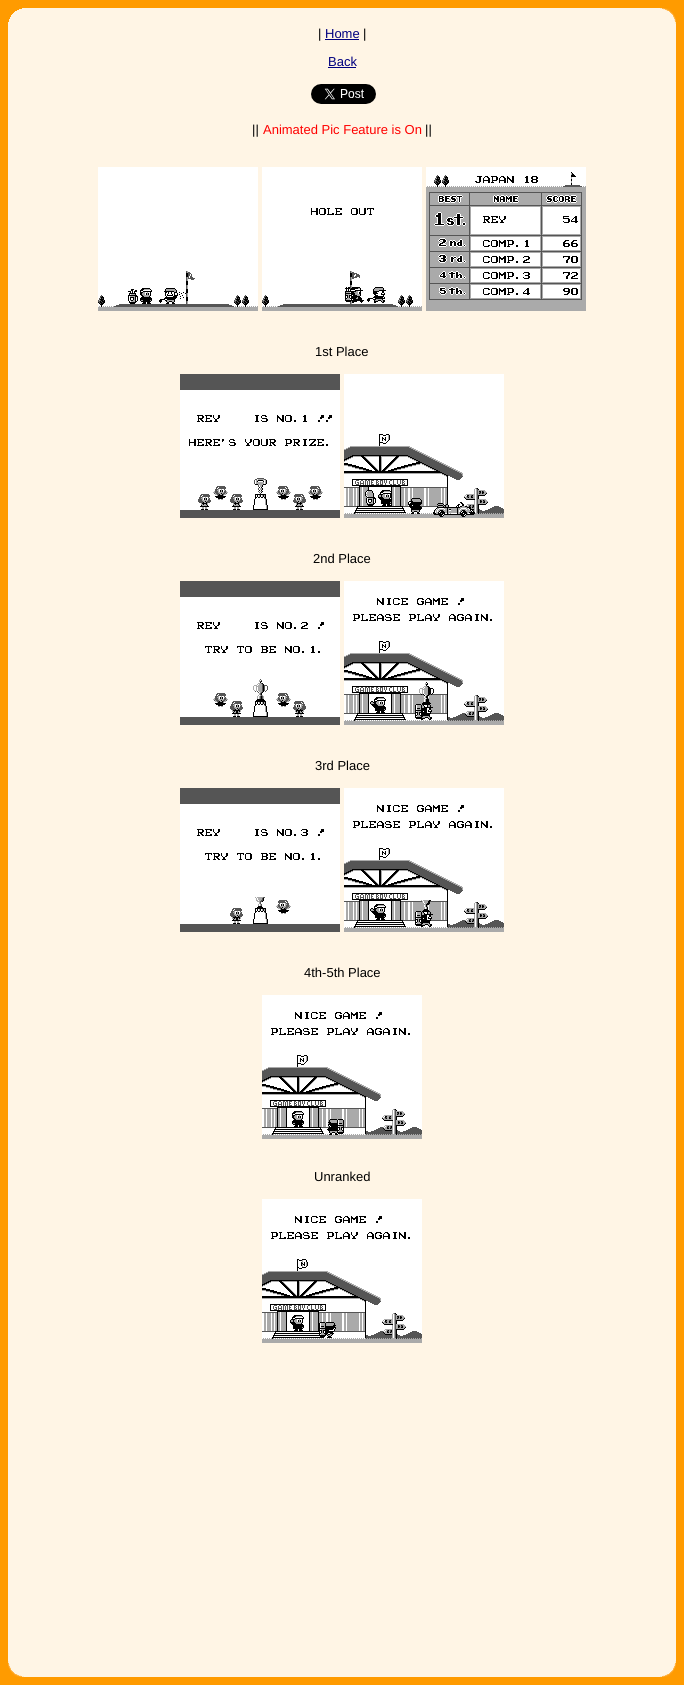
import math
import cairo

surface = cairo.ImageSurface(cairo.FORMAT_RGB24, 684, 1685)
c = cairo.Context(surface)
options = cairo.FontOptions()
options.set_hint_metrics(cairo.HINT_METRICS_OFF)
options.set_hint_style(cairo.HINT_STYLE_NONE)
c.set_font_options(options)
c.set_miter_limit(4)
def C(code):
 c.set_source_rgb(*(v / 255 for v in bytes.fromhex(code[-6:])))
def F(family, size, italic, bold):
 c.select_font_face(family, cairo.FONT_SLANT_ITALIC if italic else cairo.FONT_SLANT_NORMAL, cairo.FONT_WEIGHT_BOLD if bold else cairo.FONT_WEIGHT_NORMAL)
 c.set_font_size(size)
def T(x, y, s):
 c.move_to(x, y)
 c.show_text(s)
def R(x, y, w, h):
 c.rectangle(x, y, w, h)
 c.fill()
def I(path, x, y, w, h):
 c.save()
 c.set_source_surface(cairo.ImageSurface.create_from_png(path), x, y)
 c.rectangle(x, y, w, h)
 c.fill()
 c.restore()
C('ff9b00')
c.paint()
C('fff5e5')
R(8,8,668,1669)
I('1.png',8,8,14,14)
I('2.png',660,8,16,16)
F('Liberation Sans',13,0,0)
C('000000')
T(318,38,'|')
C('000080')
T(325,38,'Home')
R(325,39,34,1)
C('000000')
T(363,38,'|')
C('000080')
T(328,66,'Back')
R(328,67,28,1)
I('3.png',311,84,65,20)
C('000000')
T(252,134,'||')
C('ff0000')
T(263,134,'Animated Pic Feature is On')
C('000000')
T(425,134,'||')
I('4.png',98,167,160,144)
I('5.png',262,167,160,144)
I('6.png',426,167,160,144)
T(315,356,'1st Place')
I('7.png',180,374,160,144)
I('8.png',344,374,160,144)
T(313,563,'2nd Place')
I('9.png',180,581,160,144)
I('10.png',344,581,160,144)
T(315,770,'3rd Place')
I('11.png',180,788,160,144)
I('12.png',344,788,160,144)
T(304,977,'4th-5th Place')
I('13.png',262,995,160,144)
T(314,1181,'Unranked')
I('14.png',262,1199,160,144)
I('15.png',8,1661,16,16)
I('16.png',660,1661,16,16)
surface.write_to_png('o.png')
